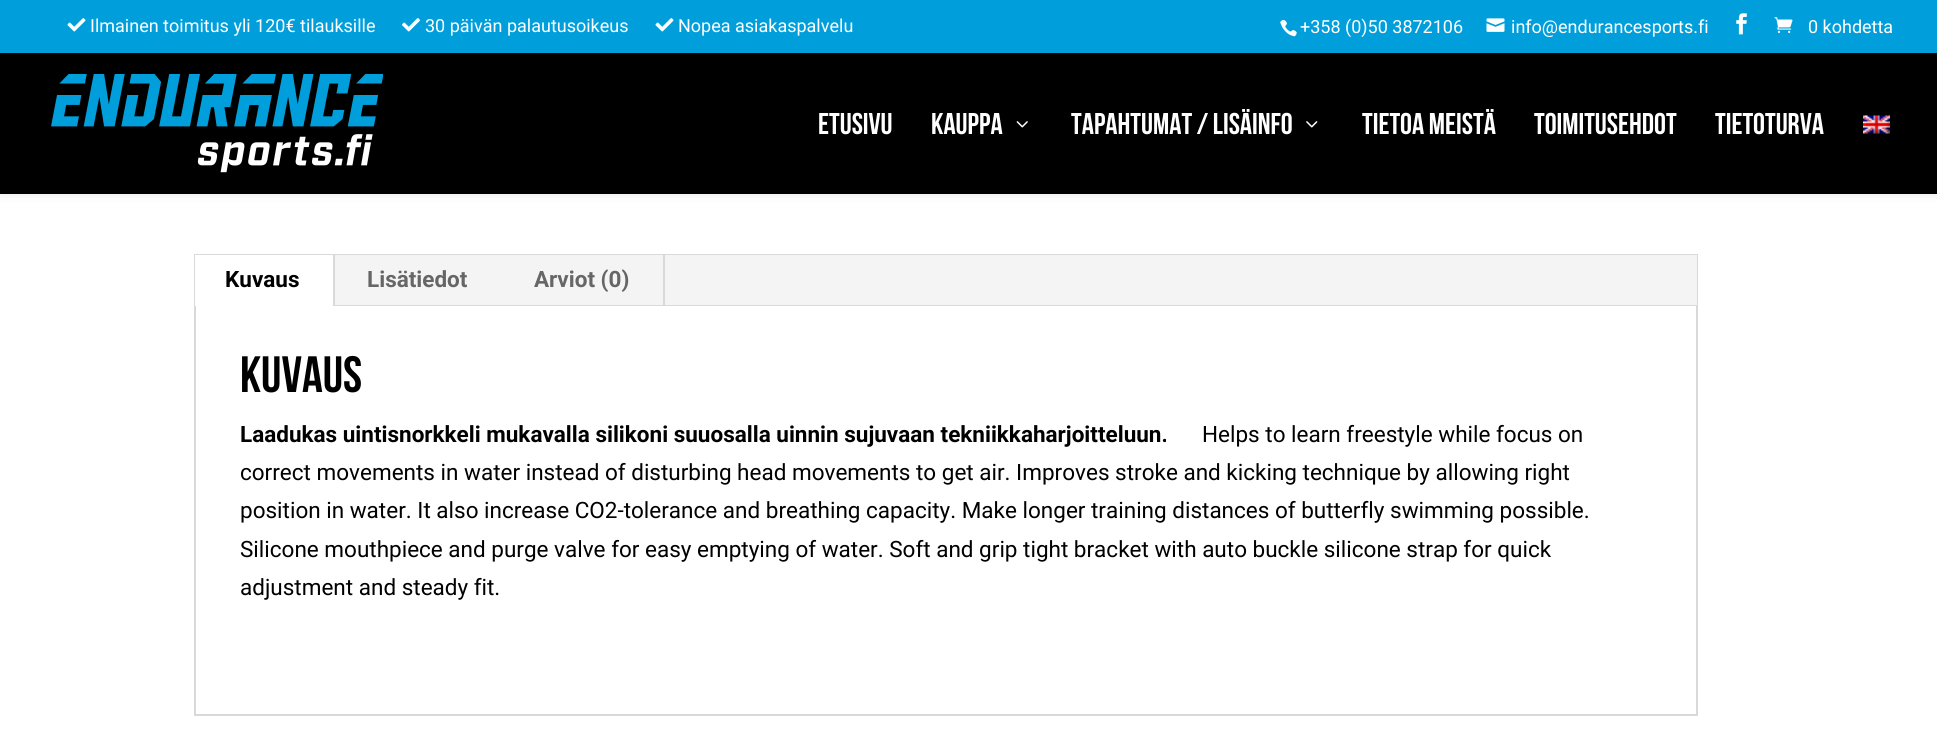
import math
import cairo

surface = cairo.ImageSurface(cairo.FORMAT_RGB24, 1937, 730)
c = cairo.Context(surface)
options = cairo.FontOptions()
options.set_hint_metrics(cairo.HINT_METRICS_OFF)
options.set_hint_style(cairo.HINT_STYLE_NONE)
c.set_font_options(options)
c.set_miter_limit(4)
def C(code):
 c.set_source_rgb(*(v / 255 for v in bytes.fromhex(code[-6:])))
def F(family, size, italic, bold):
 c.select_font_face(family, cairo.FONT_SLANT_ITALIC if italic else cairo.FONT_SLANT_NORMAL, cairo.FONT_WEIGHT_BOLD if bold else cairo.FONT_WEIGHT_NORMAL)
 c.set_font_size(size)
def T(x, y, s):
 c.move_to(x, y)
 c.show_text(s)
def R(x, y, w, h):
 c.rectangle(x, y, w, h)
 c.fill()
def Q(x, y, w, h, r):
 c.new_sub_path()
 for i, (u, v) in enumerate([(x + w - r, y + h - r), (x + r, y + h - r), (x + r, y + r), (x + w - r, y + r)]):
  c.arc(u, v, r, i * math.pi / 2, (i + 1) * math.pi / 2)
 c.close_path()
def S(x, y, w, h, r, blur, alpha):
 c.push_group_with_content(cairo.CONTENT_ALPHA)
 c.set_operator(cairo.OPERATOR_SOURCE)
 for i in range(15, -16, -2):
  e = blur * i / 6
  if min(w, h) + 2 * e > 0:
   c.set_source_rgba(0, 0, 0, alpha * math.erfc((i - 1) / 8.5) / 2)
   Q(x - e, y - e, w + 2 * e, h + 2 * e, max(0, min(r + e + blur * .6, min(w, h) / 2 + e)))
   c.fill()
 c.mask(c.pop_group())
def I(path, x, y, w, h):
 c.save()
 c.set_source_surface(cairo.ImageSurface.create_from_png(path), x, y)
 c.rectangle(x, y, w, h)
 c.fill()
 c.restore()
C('ffffff')
c.paint()
C('000000')
S(0,53,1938,141,0,5,.1)
C('009fdb')
R(0,0,1937,53)
I('1.png',67,18,19,14)
F('Roboto',18,0,0)
C('ffffff')
T(90,32,'Ilmainen toimitus yli 120€ tilauksille')
I('2.png',402,18,18,14)
T(425,32,'30 päivän palautusoikeus')
I('1.png',655,18,19,14)
T(678,32,'Nopea asiakaspalvelu')
I('3.png',1280,19,17,18)
T(1300,33,'+358 (0)50 3872106')
I('4.png',1486,18,19,14)
T(1511,33,'info@endurancesports.fi')
I('5.png',1736,13,11,22)
I('6.png',1774,17,19,16)
T(1808,33,'0 kohdetta')
C('000000')
R(0,53,1937,141)
I('7.png',51,74,332,99)
F('Bebas Neue',30,0,1)
C('ffffff')
T(818,134,'ETUSIVU')
T(931,134,'KAUPPA')
I('8.png',1016,121,12,7)
T(1071,134,'TAPAHTUMAT / LISÄINFO')
I('9.png',1306,121,12,7)
T(1362,134,'TIETOA MEISTÄ')
T(1534,134,'TOIMITUSEHDOT')
T(1715,134,'TIETOTURVA')
I('10.png',1863,115,27,19)
c.rectangle(195,255,1502,460)
C('d9d9d9')
c.stroke()
C('f4f4f4')
R(335,255,1362,50)
C('ffffff')
R(195,255,138,51)
C('d9d9d9')
R(333,255,2,51)
F('Roboto',22.5,0,1)
C('000000')
T(225,287,'Kuvaus')
C('666666')
T(367,287,'Lisätiedot')
C('d9d9d9')
R(663,255,2,51)
C('666666')
T(534,287,'Arviot (0)')
C('d9d9d9')
R(335,305,1362,1)
F('Bebas Neue',51,0,1)
C('000000')
T(240,392,'KUVAUS')
F('Roboto',22.5,0,1)
T(240,442,'Laadukas uintisnorkkeli mukavalla silikoni suuosalla uinnin sujuvaan tekniikkaharjoitteluun.')
F('Roboto',22.5,0,0)
T(1202,442,'Helps to learn freestyle while focus on')
T(240,480,'correct movements in water instead of disturbing head movements to get air. Improves stroke and kicking technique by allowing right')
T(240,518,'position in water. It also increase CO2-tolerance and breathing capacity. Make longer training distances of butterfly swimming possible.')
T(240,557,'Silicone mouthpiece and purge valve for easy emptying of water. Soft and grip tight bracket with auto buckle silicone strap for quick')
T(240,595,'adjustment and steady fit.')
surface.write_to_png('o.png')
